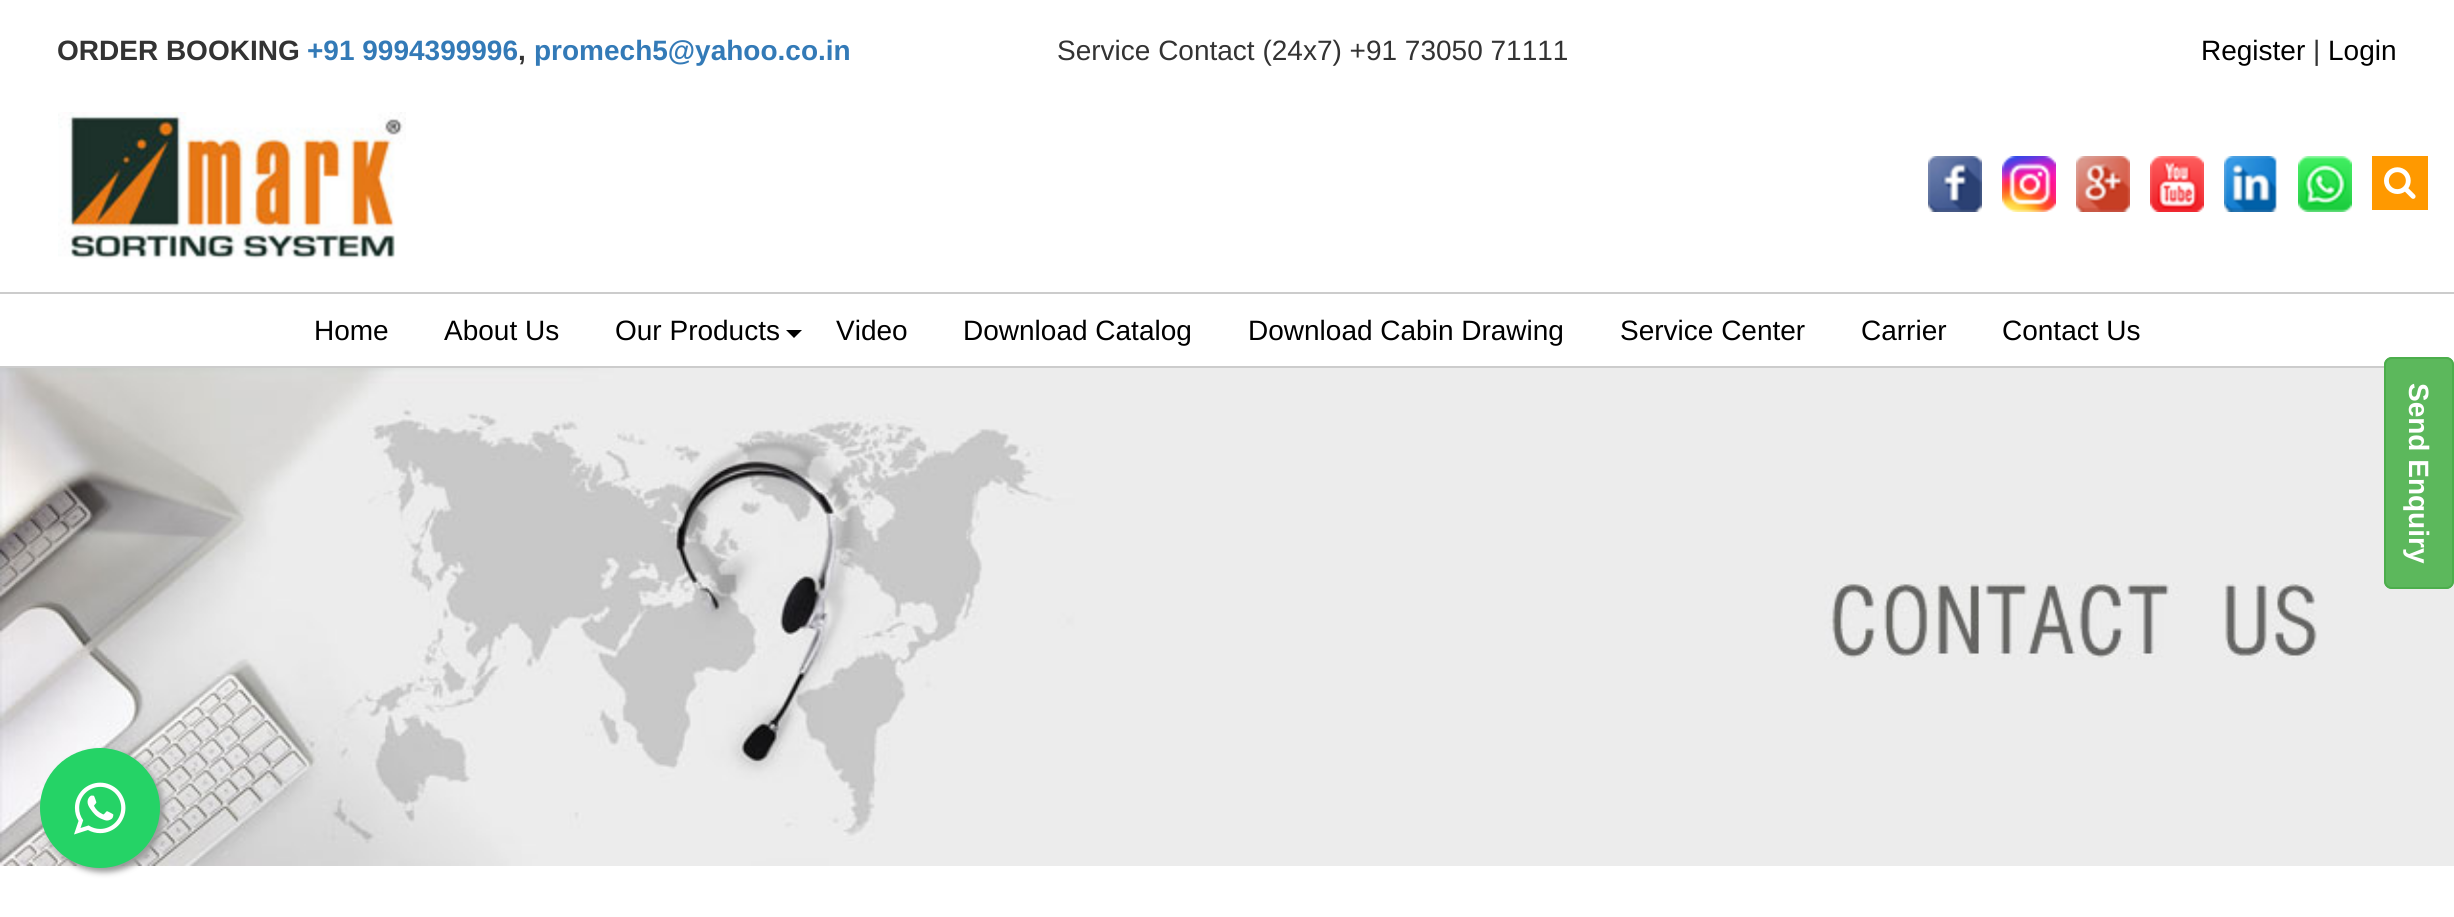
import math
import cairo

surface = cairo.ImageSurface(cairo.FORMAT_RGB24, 2454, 917)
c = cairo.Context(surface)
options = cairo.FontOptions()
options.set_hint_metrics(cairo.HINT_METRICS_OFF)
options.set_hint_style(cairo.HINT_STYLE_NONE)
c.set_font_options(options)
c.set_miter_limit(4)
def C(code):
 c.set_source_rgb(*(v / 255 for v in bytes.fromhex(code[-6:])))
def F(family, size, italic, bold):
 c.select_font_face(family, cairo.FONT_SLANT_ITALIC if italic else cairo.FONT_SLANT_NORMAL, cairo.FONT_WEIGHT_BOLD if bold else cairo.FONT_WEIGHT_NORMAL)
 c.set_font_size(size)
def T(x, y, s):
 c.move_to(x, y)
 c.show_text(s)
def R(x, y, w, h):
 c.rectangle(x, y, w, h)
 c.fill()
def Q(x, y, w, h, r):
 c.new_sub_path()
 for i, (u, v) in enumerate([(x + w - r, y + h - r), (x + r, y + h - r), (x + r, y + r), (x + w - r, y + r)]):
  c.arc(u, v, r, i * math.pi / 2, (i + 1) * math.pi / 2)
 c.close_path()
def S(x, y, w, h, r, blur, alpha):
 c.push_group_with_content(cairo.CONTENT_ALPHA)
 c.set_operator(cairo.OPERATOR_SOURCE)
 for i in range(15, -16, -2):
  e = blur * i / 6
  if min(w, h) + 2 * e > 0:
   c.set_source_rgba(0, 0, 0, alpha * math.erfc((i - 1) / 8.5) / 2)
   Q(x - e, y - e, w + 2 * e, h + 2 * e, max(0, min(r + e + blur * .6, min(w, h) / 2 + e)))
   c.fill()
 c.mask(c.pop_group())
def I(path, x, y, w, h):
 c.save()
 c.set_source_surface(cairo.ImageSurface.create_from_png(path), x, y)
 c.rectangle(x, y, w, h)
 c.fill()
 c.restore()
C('ffffff')
c.paint()
F('Liberation Sans',28,0,1)
C('333333')
T(57,60,'ORDER BOOKING')
C('337ab7')
T(307,60,'+91 9994399996')
C('333333')
T(518,60,',')
C('337ab7')
T(534,60,'promech5@yahoo.co.in')
F('Liberation Sans',28,0,0)
C('333333')
T(1057,60,'Service Contact (24x7) +91 73050 71111')
C('000000')
T(2201,60,'Register')
C('333333')
T(2313,60,'|')
C('000000')
T(2328,60,'Login')
I('1.png',58,112,348,147)
I('2.png',1928,156,54,56)
I('3.png',2002,156,54,56)
I('4.png',2076,156,54,56)
I('5.png',2150,156,54,56)
I('6.png',2224,156,53,56)
I('7.png',2298,156,54,56)
C('ff9900')
R(2372,156,56,54)
I('8.png',2384,167,32,32)
C('cccccc')
R(0,292,2454,2)
R(0,366,2384,2)
C('000000')
T(314,340,'Home')
T(444,340,'About Us')
T(615,340,'Our Products')
c.new_path()
c.move_to(786,330)
c.line_to(802,330)
c.line_to(794,338)
c.close_path()
c.fill()
T(836,340,'Video')
T(963,340,'Download Catalog')
T(1248,340,'Download Cabin Drawing')
T(1620,340,'Service Center')
T(1861,340,'Carrier')
T(2002,340,'Contact Us')
I('9.png',0,368,2454,498)
C('5cb85c')
c.new_path()
c.move_to(2454,365)
c.line_to(2454,581)
c.curve_to(2454,586,2450,589,2446,589)
c.line_to(2392,589)
c.curve_to(2388,589,2384,586,2384,581)
c.line_to(2384,365)
c.curve_to(2384,360,2388,357,2392,357)
c.line_to(2446,357)
c.curve_to(2450,357,2454,360,2454,365)
c.close_path()
c.fill()
c.new_path()
c.move_to(2453,365)
c.line_to(2453,581)
c.curve_to(2453,585,2450,588,2446,588)
c.line_to(2392,588)
c.curve_to(2388,588,2385,585,2385,581)
c.line_to(2385,365)
c.curve_to(2385,361,2388,358,2392,358)
c.line_to(2446,358)
c.curve_to(2450,358,2453,361,2453,365)
c.close_path()
C('4cae4c')
c.stroke()
F('Liberation Sans',28,0,1)
C('ffffff')
c.save()
c.translate(2409,383)
c.rotate(90 * math.pi / 180)
T(0,0,'Send Enquiry')
c.restore()
C('999999')
S(44,752,120,120,60,3,1)
C('25d366')
c.arc(100,808,60,0,2 * math.pi)
c.fill()
I('10.png',74,782,52,53)
surface.write_to_png('o.png')
